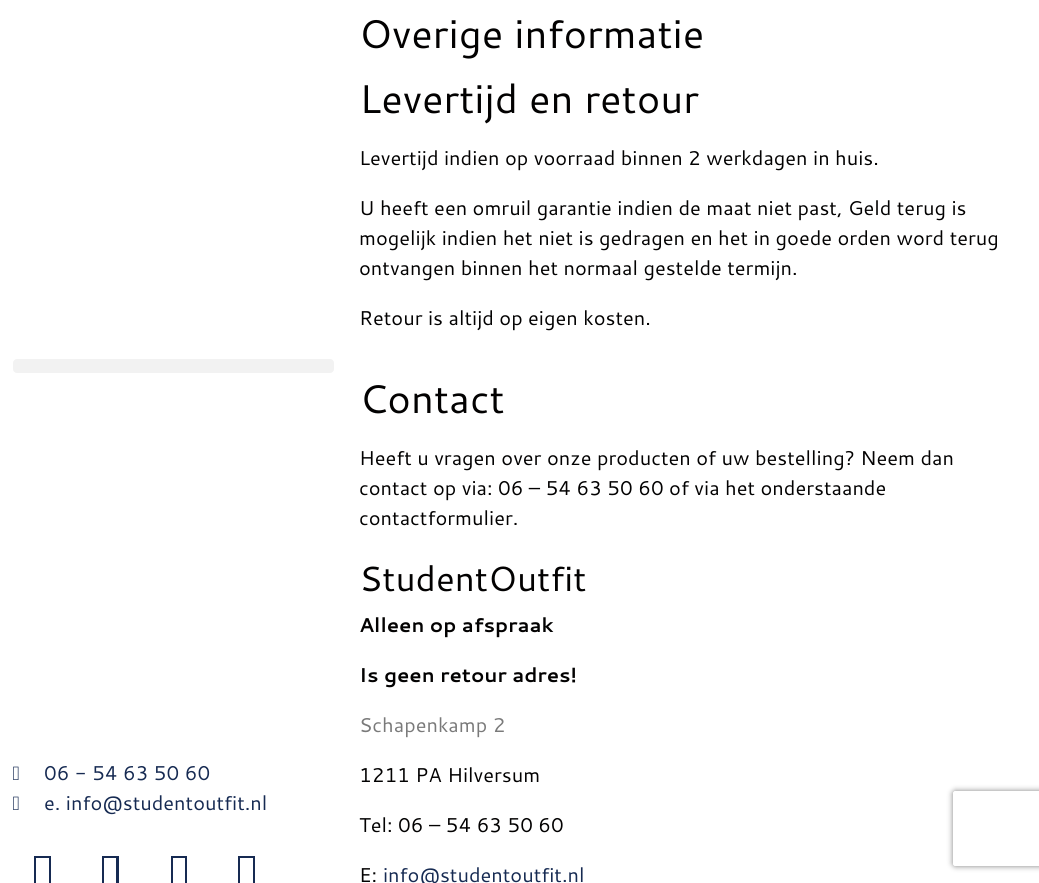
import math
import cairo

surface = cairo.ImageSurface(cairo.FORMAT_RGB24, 1039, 883)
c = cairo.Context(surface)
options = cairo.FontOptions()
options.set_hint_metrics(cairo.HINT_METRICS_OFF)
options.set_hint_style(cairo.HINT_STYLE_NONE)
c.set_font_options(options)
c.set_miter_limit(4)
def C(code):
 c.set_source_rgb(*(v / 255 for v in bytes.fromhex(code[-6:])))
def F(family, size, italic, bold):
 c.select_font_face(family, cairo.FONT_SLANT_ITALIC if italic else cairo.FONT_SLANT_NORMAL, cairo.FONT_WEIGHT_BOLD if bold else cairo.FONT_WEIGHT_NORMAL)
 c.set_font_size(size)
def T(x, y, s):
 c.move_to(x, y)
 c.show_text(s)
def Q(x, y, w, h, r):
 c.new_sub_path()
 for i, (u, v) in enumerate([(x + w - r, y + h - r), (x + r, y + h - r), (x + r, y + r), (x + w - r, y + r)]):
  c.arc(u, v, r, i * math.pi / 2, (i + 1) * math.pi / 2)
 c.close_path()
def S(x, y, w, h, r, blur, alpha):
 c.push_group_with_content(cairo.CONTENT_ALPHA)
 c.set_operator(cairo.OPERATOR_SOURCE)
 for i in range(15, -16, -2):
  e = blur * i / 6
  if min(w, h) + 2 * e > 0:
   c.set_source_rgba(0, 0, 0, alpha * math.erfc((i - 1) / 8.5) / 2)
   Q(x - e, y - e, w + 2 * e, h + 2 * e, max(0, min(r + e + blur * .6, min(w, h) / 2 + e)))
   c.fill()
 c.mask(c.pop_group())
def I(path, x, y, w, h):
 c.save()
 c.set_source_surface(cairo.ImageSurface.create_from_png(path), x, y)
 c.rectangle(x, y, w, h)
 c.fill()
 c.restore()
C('ffffff')
c.paint()
C('f2f2f2')
Q(13,359,321,14,4)
c.fill()
I('1.png',13,766,6,14)
F('Cantarell',20,0,0)
C('162a52')
T(44,780,'06 - 54 63 50 60')
I('1.png',13,796,6,14)
T(44,810,'e. info@studentoutfit.nl')
c.new_path()
c.move_to(34,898)
c.line_to(34,856)
c.line_to(51,856)
c.line_to(51,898)
c.close_path()
c.move_to(36,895)
c.line_to(49,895)
c.line_to(49,858)
c.line_to(36,858)
c.close_path()
c.fill()
c.new_path()
c.move_to(102,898)
c.line_to(102,856)
c.line_to(119,856)
c.line_to(119,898)
c.close_path()
c.move_to(104,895)
c.line_to(116,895)
c.line_to(116,858)
c.line_to(104,858)
c.close_path()
c.fill()
c.new_path()
c.move_to(171,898)
c.line_to(171,856)
c.line_to(187,856)
c.line_to(187,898)
c.close_path()
c.move_to(173,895)
c.line_to(185,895)
c.line_to(185,858)
c.line_to(173,858)
c.close_path()
c.fill()
c.new_path()
c.move_to(238,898)
c.line_to(238,856)
c.line_to(255,856)
c.line_to(255,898)
c.close_path()
c.move_to(240,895)
c.line_to(253,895)
c.line_to(253,858)
c.line_to(240,858)
c.close_path()
c.fill()
F('Cantarell',40,0,0)
C('020101')
T(359,48,'Overige informatie')
T(359,113,'Levertijd en retour')
F('Cantarell',20,0,0)
T(359,165,'Levertijd indien op voorraad binnen 2 werkdagen in huis.')
T(359,215,'U heeft een omruil garantie indien de maat niet past, Geld terug is')
T(359,245,'mogelijk indien het niet is gedragen en het in goede orden word terug')
T(359,275,'ontvangen binnen het normaal gestelde termijn.')
T(359,325,'Retour is altijd op eigen kosten.')
F('Cantarell',40,0,0)
T(359,413,'Contact')
F('Cantarell',20,0,0)
T(359,465,'Heeft u vragen over onze producten of uw bestelling? Neem dan')
T(359,495,'contact op via: 06 – 54 63 50 60 of via het onderstaande')
T(359,525,'contactformulier.')
F('Cantarell',35,0,0)
T(359,591,'StudentOutfit')
F('Cantarell',20,0,1)
T(359,632,'Alleen op afspraak')
T(359,682,'Is geen retour adres!')
F('Cantarell',20,0,0)
C('7a7a7a')
T(359,732,'Schapenkamp 2')
C('020101')
T(359,782,'1211 PA Hilversum')
T(359,832,'Tel: 06 – 54 63 50 60')
T(359,882,'E:')
C('162a52')
T(383,882,'info@studentoutfit.nl')
c.save()
c.set_fill_rule(cairo.FILL_RULE_EVEN_ODD)
c.new_path()
c.move_to(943,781)
c.line_to(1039,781)
c.line_to(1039,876)
c.line_to(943,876)
c.close_path()
c.move_to(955.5,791)
c.line_to(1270.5,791)
c.curve_to(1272,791,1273,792,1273,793.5)
c.line_to(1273,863.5)
c.curve_to(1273,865,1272,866,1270.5,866)
c.line_to(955.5,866)
c.curve_to(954,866,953,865,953,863.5)
c.line_to(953,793.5)
c.curve_to(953,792,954,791,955.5,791)
c.close_path()
c.clip()
C('808080')
S(953,791,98,75,2.5,3,1)
c.restore()
surface.write_to_png('o.png')
